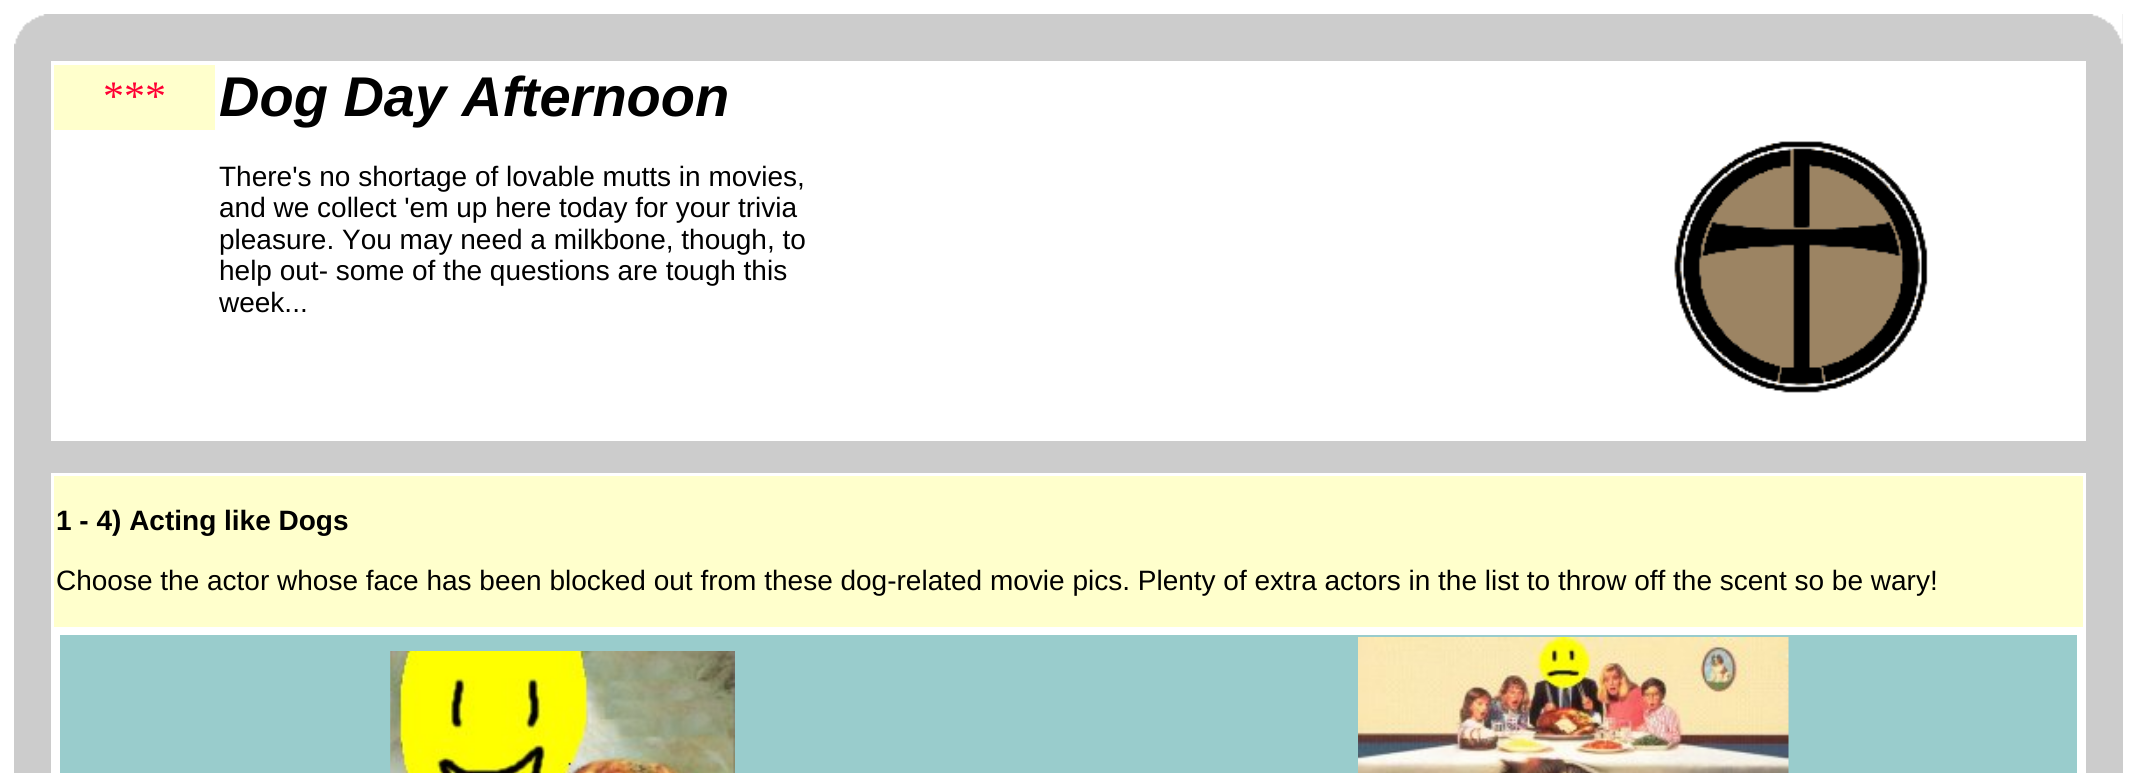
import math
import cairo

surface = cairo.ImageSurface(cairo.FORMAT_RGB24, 2136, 773)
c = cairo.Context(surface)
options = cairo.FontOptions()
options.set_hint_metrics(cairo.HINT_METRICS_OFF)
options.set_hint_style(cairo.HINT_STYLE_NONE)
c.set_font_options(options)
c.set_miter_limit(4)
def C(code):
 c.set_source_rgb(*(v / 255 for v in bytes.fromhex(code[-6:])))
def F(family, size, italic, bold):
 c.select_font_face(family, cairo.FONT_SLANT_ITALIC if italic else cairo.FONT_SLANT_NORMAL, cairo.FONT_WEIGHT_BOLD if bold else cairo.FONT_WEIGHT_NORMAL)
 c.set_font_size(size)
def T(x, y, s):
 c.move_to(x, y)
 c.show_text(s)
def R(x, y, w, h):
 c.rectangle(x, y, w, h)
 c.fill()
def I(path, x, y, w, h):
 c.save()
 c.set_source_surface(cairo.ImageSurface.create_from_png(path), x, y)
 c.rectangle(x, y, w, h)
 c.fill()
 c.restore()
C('ffffff')
c.paint()
C('cccccc')
R(14,14,2109,759)
I('1.png',14,14,31,31)
I('2.png',2092,14,31,31)
C('ffffff')
R(51,61,2035,380)
C('ffffcc')
R(54,65,161,65)
F('Liberation Serif',42,0,0)
C('ff0033')
T(103,110,'***')
F('Liberation Sans',56,1,1)
C('000000')
T(219,116,'Dog Day Afternoon')
F('Liberation Sans',28,0,0)
T(219,186,'There\'s no shortage of lovable mutts in movies,')
T(219,217,'and we collect \'em up here today for your trivia')
T(219,249,'pleasure. You may need a milkbone, though, to')
T(219,280,'help out- some of the questions are tough this')
T(219,312,'week...')
I('3.png',1674,141,254,252)
C('ffffff')
R(51,473,2035,300)
C('ffffcc')
R(54,476,2029,151)
F('Liberation Sans',28,0,1)
C('000000')
T(56,530,'1 - 4) Acting like Dogs')
F('Liberation Sans',28,0,0)
T(56,590,'Choose the actor whose face has been blocked out from these dog-related movie pics. Plenty of extra actors in the list to throw off the scent so be wary!')
C('99cccc')
R(60,635,2017,138)
I('4.png',390,651,345,122)
I('5.png',1358,637,431,136)
surface.write_to_png('o.png')
